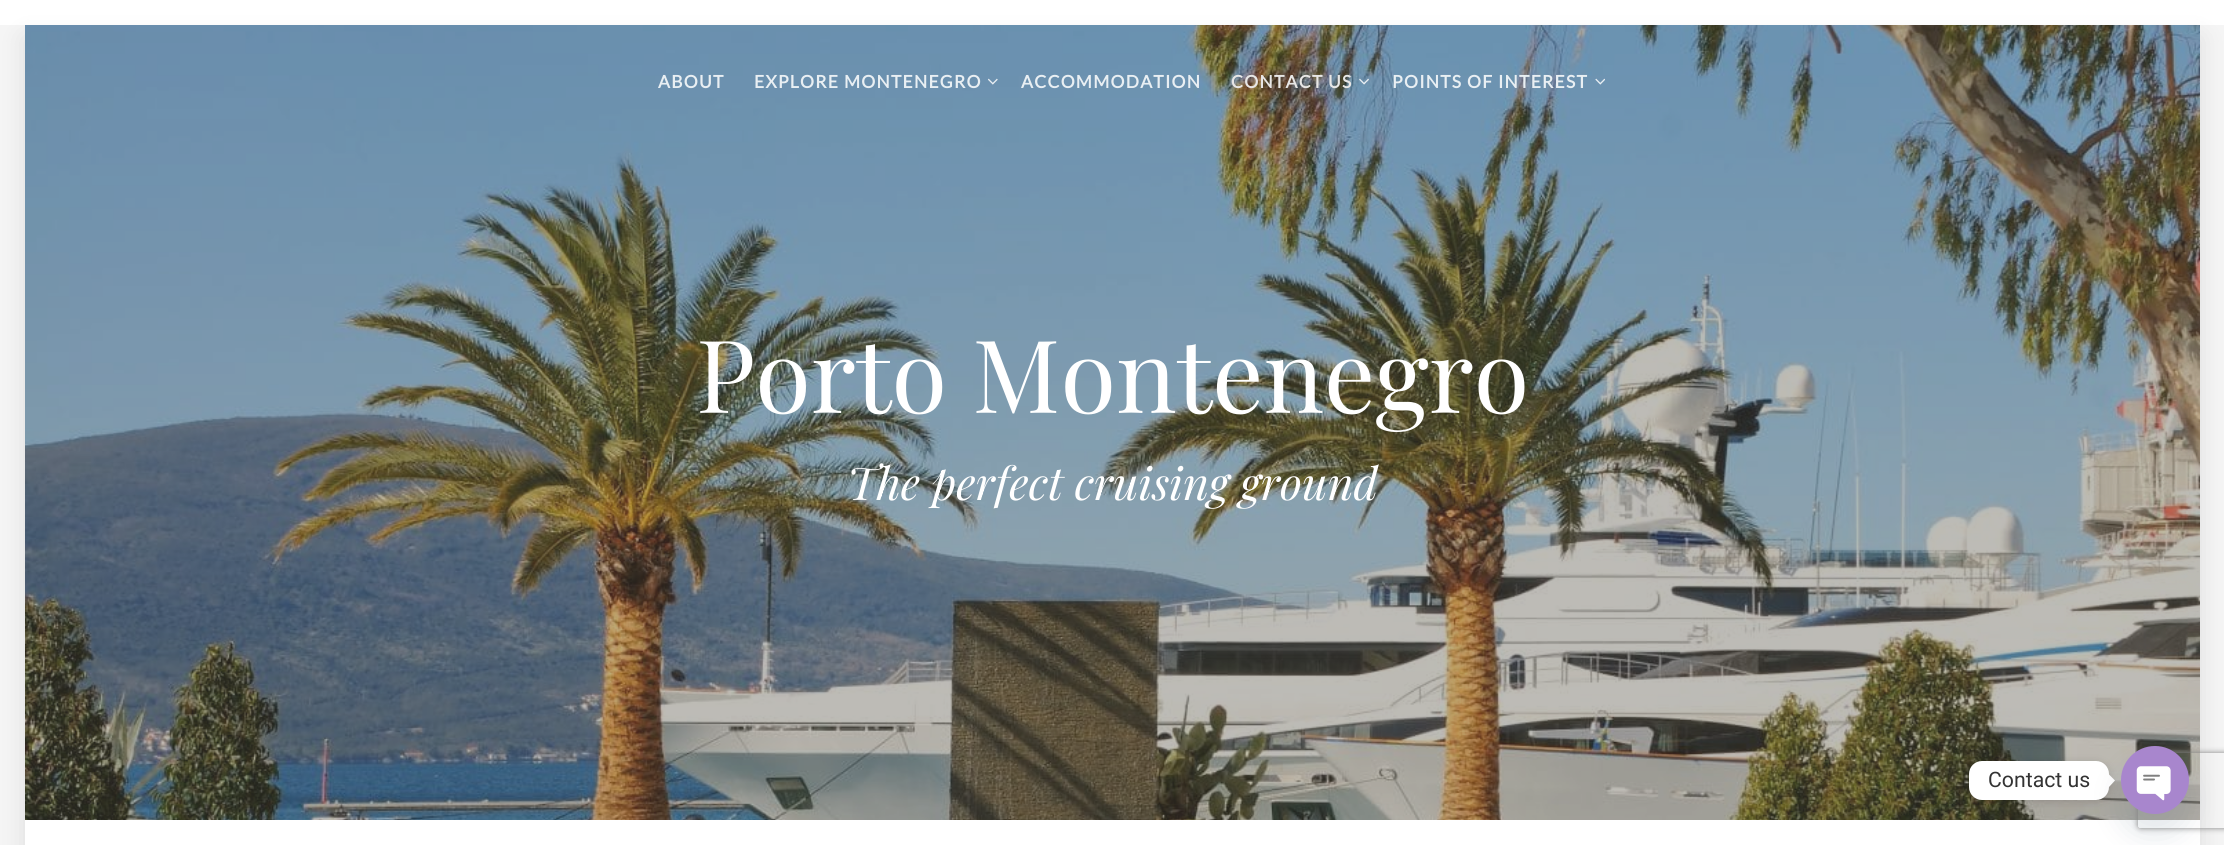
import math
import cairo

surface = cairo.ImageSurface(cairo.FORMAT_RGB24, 2224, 845)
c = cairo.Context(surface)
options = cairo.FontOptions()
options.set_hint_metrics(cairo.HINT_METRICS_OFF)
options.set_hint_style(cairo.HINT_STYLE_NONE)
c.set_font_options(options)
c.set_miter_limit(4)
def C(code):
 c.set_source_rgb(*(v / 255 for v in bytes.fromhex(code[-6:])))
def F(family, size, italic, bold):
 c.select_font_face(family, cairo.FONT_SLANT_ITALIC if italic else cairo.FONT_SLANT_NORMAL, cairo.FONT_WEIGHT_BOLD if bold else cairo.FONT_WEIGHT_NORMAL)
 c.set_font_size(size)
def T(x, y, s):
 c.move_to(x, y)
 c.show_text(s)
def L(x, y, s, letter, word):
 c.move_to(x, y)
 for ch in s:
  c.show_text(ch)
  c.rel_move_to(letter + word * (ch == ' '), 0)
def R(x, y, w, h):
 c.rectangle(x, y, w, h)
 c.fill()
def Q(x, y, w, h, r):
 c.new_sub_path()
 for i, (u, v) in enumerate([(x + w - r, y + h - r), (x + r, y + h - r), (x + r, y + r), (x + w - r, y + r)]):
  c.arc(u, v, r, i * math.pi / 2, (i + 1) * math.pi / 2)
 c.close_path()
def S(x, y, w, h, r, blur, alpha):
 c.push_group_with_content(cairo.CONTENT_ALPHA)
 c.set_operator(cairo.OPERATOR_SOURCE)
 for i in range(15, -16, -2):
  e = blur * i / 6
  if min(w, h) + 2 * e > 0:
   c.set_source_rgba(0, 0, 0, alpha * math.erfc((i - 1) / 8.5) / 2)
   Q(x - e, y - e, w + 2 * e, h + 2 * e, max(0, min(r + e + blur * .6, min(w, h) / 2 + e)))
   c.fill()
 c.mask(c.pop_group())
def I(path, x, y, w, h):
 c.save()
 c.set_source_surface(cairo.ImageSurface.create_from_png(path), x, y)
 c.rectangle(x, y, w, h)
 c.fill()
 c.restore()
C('ffffff')
c.paint()
C('f5f5f5')
R(0,25,2224,820)
C('000000')
S(25,38,2175,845,0,12.5,.1)
I('4.png',25,25,2175,795)
F('Lato',17.5,0,1)
C('e9eff3')
L(658,88,'ABOUT',1.25,0)
L(754,88,'EXPLORE MONTENEGRO',1.25,0)
I('1.png',988,78,10,7)
L(1021,88,'ACCOMMODATION',1.25,0)
C('e8e7e6')
L(1231,88,'CONTACT US',1.25,0)
I('2.png',1359,78,10,7)
C('e9eff3')
L(1392,88,'POINTS OF INTEREST',1.25,0)
I('3.png',1595,78,10,7)
C('ffffff')
R(25,820,2175,25)
F('Playfair Display',101.25,0,0)
T(696,413,'Porto Montenegro')
F('Playfair Display',45,1,0)
T(847,500,'The perfect cruising ground')
C('000000')
S(1969,763,140,38,13,5,.15)
C('ffffff')
Q(1969,761,140,39,13)
c.fill()
F('Roboto',21.25,0,0)
C('333333')
T(1988,787,'Contact us')
C('ffffff')
c.new_path()
c.move_to(2109,787)
c.line_to(2109,774.5)
c.line_to(2115,780.5)
c.close_path()
c.fill()
C('49687e')
S(2121,766,68,68,34,15,.16)
c.save()
c.set_fill_rule(cairo.FILL_RULE_EVEN_ODD)
c.new_path()
c.move_to(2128,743)
c.line_to(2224,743)
c.line_to(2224,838)
c.line_to(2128,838)
c.close_path()
c.move_to(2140.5,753)
c.line_to(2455.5,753)
c.curve_to(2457,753,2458,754,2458,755.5)
c.line_to(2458,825.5)
c.curve_to(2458,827,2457,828,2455.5,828)
c.line_to(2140.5,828)
c.curve_to(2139,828,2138,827,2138,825.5)
c.line_to(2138,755.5)
c.curve_to(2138,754,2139,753,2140.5,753)
c.close_path()
c.clip()
C('808080')
S(2138,753,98,75,2.5,3,1)
c.restore()
I('5.png',2121,746,68,68)
surface.write_to_png('o.png')
